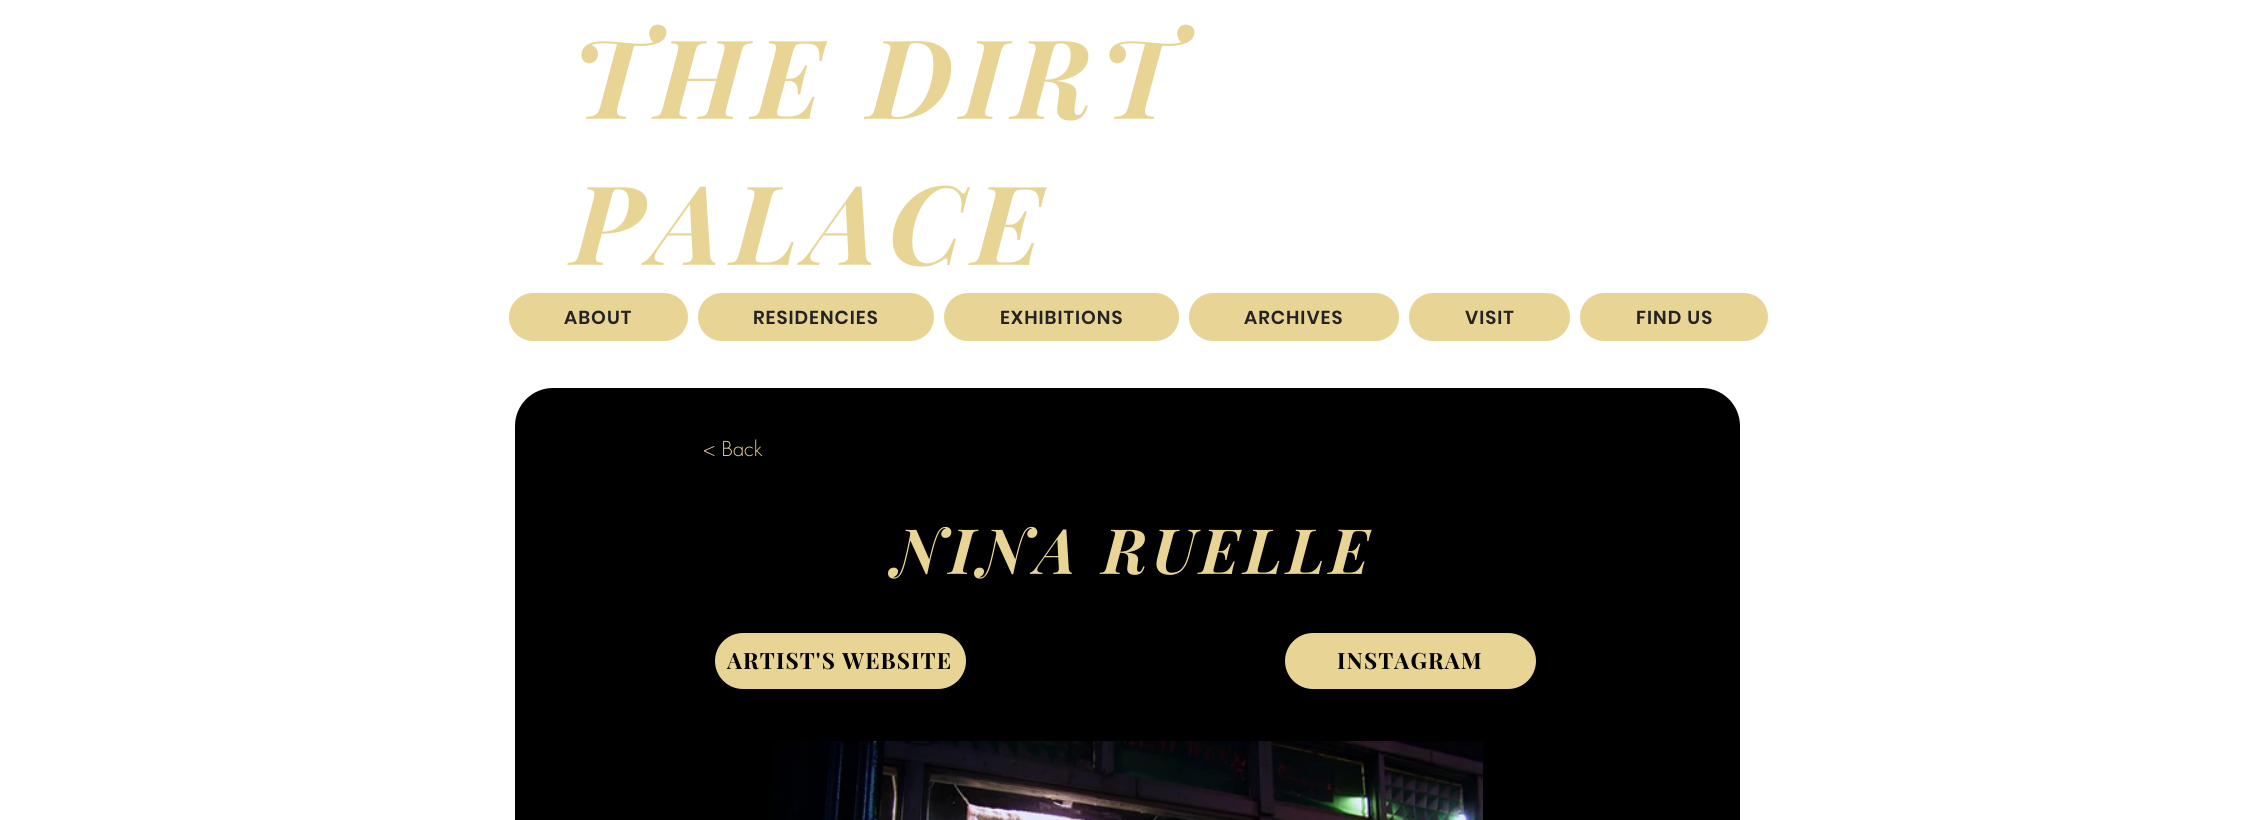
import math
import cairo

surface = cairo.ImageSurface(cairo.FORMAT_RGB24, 2253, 820)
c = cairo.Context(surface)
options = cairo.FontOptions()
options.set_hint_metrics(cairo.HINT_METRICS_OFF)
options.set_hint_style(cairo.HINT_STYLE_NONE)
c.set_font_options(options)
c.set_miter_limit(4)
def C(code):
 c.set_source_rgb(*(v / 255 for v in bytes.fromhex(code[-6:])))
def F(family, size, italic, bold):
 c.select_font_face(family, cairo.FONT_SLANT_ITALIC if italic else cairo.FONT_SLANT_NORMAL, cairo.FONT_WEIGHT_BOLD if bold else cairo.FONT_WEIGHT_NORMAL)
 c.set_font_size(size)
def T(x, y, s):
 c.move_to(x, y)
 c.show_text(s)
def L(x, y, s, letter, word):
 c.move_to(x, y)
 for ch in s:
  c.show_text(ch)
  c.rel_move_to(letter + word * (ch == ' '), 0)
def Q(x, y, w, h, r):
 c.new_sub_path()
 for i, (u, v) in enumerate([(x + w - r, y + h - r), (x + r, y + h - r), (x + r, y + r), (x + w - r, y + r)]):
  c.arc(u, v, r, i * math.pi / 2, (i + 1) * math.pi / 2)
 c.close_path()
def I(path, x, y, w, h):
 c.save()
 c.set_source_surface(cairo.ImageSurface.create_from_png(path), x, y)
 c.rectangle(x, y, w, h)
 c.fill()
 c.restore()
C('ffffff')
c.paint()
F('Playfair Display',110,1,1)
C('e8d595')
L(572,119,'THE DIRT',8.75,0)
L(572,265,'PALACE',8.75,0)
Q(509,293,179,48,24)
c.fill()
F('Poppins SemiBold',18.75,0,0)
C('242323')
L(564,324,'ABOUT',1,0)
C('e8d595')
Q(698,293,236,48,24)
c.fill()
C('242323')
L(753,324,'RESIDENCIES',1,0)
C('e8d595')
Q(944,293,235,48,24)
c.fill()
C('242323')
L(1000,324,'EXHIBITIONS',1,0)
C('e8d595')
Q(1189,293,210,48,24)
c.fill()
C('242323')
L(1244,324,'ARCHIVES',1,0)
C('e8d595')
Q(1409,293,161,48,24)
c.fill()
C('242323')
L(1465,324,'VISIT',1,0)
C('e8d595')
Q(1580,293,188,48,24)
c.fill()
C('242323')
L(1636,324,'FIND US',1,0)
C('000000')
Q(515,388,1225,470,38)
c.fill()
F('futura Light',20,0,0)
C('e8d595')
T(703,456,'< Back')
F('Playfair Display',62.5,1,1)
L(893,574,'NINA RUELLE',5,0)
Q(715,633,251,56,28)
c.fill()
F('Playfair Display',22.5,0,1)
C('000000')
L(727,669,'ARTIST\'S WEBSITE',1.1,0)
C('e8d595')
Q(1285,633,251,56,28)
c.fill()
C('000000')
L(1337,669,'INSTAGRAM',1.1,0)
I('1.png',773,741,710,79)
surface.write_to_png('o.png')
